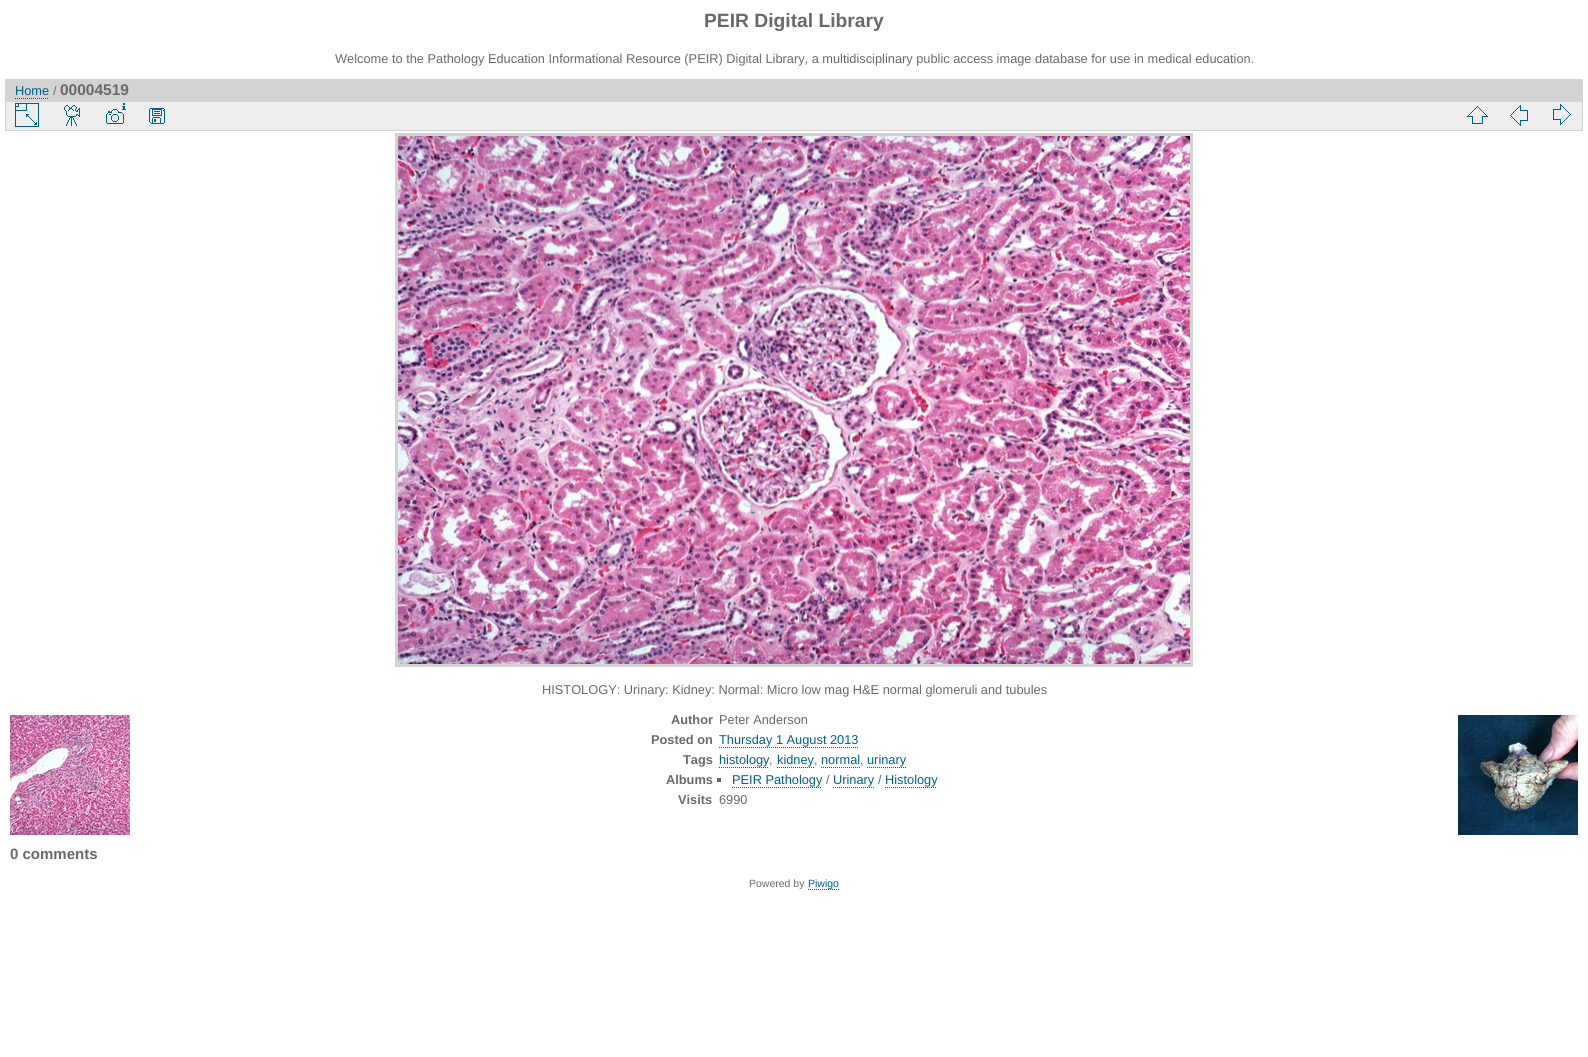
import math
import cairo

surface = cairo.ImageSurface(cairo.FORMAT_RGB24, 1588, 1057)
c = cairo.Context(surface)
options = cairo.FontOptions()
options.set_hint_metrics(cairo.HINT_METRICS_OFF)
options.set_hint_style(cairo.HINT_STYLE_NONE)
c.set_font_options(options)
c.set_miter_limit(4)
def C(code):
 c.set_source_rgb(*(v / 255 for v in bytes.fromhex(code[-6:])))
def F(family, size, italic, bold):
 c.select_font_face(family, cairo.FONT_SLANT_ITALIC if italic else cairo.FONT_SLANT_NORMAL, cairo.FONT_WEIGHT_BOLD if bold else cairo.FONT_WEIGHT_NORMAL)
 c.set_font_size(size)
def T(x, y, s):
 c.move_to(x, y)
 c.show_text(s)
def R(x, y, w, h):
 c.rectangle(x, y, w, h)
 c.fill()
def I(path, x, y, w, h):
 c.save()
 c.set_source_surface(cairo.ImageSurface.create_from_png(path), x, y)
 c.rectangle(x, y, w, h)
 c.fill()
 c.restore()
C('ffffff')
c.paint()
F('Liberation Sans',19.25,0,1)
C('696969')
T(704,27,'PEIR Digital Library')
F('Liberation Sans',12.8,0,0)
T(335,63,'Welcome to the Pathology Education Informational Resource (PEIR) Digital Library, a multidisciplinary public access image database for use in medical education.')
C('d3d3d3')
R(5,79,1578,22)
C('005e89')
T(15,95,'Home')
c.new_path()
c.move_to(15,98.5)
c.line_to(49,98.5)
c.set_line_width(1)
c.set_dash([1,1])
c.stroke()
C('696969')
T(53,95,'/')
F('Liberation Sans',15.5,0,1)
T(60,95,'00004519')
C('eeeeee')
c.rectangle(5.5,101.5,1577,29)
c.fill_preserve()
C('d3d3d3')
c.set_dash([])
c.stroke()
I('1.png',15,103,24,24)
I('2.png',64,105,16,21)
I('3.png',106,103,20,21)
I('4.png',149,108,16,16)
I('5.png',1467,106,21,18)
I('6.png',1510,105,18,21)
I('7.png',1553,104,18,21)
c.rectangle(396.5,134.5,795,531)
c.set_line_width(3)
c.stroke()
I('8.png',398,136,792,528)
F('Liberation Sans',12.8,0,0)
C('696969')
T(542,694,'HISTOLOGY: Urinary: Kidney: Normal: Micro low mag H&E normal glomeruli and tubules')
F('Liberation Sans',12.8,0,1)
T(671,724,'Author')
F('Liberation Sans',12.8,0,0)
T(719,724,'Peter Anderson')
F('Liberation Sans',12.8,0,1)
T(651,744,'Posted on')
F('Liberation Sans',12.8,0,0)
C('005e89')
T(719,744,'Thursday 1 August 2013')
c.new_path()
c.move_to(719,747.5)
c.line_to(858,747.5)
c.set_line_width(1)
c.set_dash([1,1])
c.stroke()
F('Liberation Sans',12.8,0,1)
C('696969')
T(683,764,'Tags')
F('Liberation Sans',12.8,0,0)
C('005e89')
T(719,764,'histology')
c.new_path()
c.move_to(719,767.5)
c.line_to(769,767.5)
c.stroke()
C('696969')
T(769,764,',')
C('005e89')
T(777,764,'kidney')
c.new_path()
c.move_to(777,767.5)
c.line_to(814,767.5)
c.stroke()
C('696969')
T(814,764,',')
C('005e89')
T(821,764,'normal')
c.new_path()
c.move_to(821,767.5)
c.line_to(860,767.5)
c.stroke()
C('696969')
T(860,764,',')
C('005e89')
T(867,764,'urinary')
c.new_path()
c.move_to(867,767.5)
c.line_to(906,767.5)
c.stroke()
F('Liberation Sans',12.8,0,1)
C('696969')
T(666,784,'Albums')
R(717,778,4,4)
F('Liberation Sans',12.8,0,0)
C('005e89')
T(732,784,'PEIR Pathology')
c.new_path()
c.move_to(732,787.5)
c.line_to(822,787.5)
c.stroke()
C('696969')
T(826,784,'/')
C('005e89')
T(833,784,'Urinary')
c.new_path()
c.move_to(833,787.5)
c.line_to(874,787.5)
c.stroke()
C('696969')
T(878,784,'/')
C('005e89')
T(885,784,'Histology')
c.new_path()
c.move_to(885,787.5)
c.line_to(937,787.5)
c.stroke()
F('Liberation Sans',12.8,0,1)
C('696969')
T(678,804,'Visits')
F('Liberation Sans',12.8,0,0)
T(719,804,'6990')
I('9.png',10,715,120,120)
I('10.png',1458,715,120,120)
F('Liberation Sans',15,0,1)
T(10,859,'0 comments')
F('Liberation Sans',10.5,0,0)
T(749,887,'Powered by')
c.new_path()
c.move_to(808,889.5)
c.line_to(839,889.5)
C('005e89')
c.stroke()
T(808,887,'Piwigo')
surface.write_to_png('o.png')
